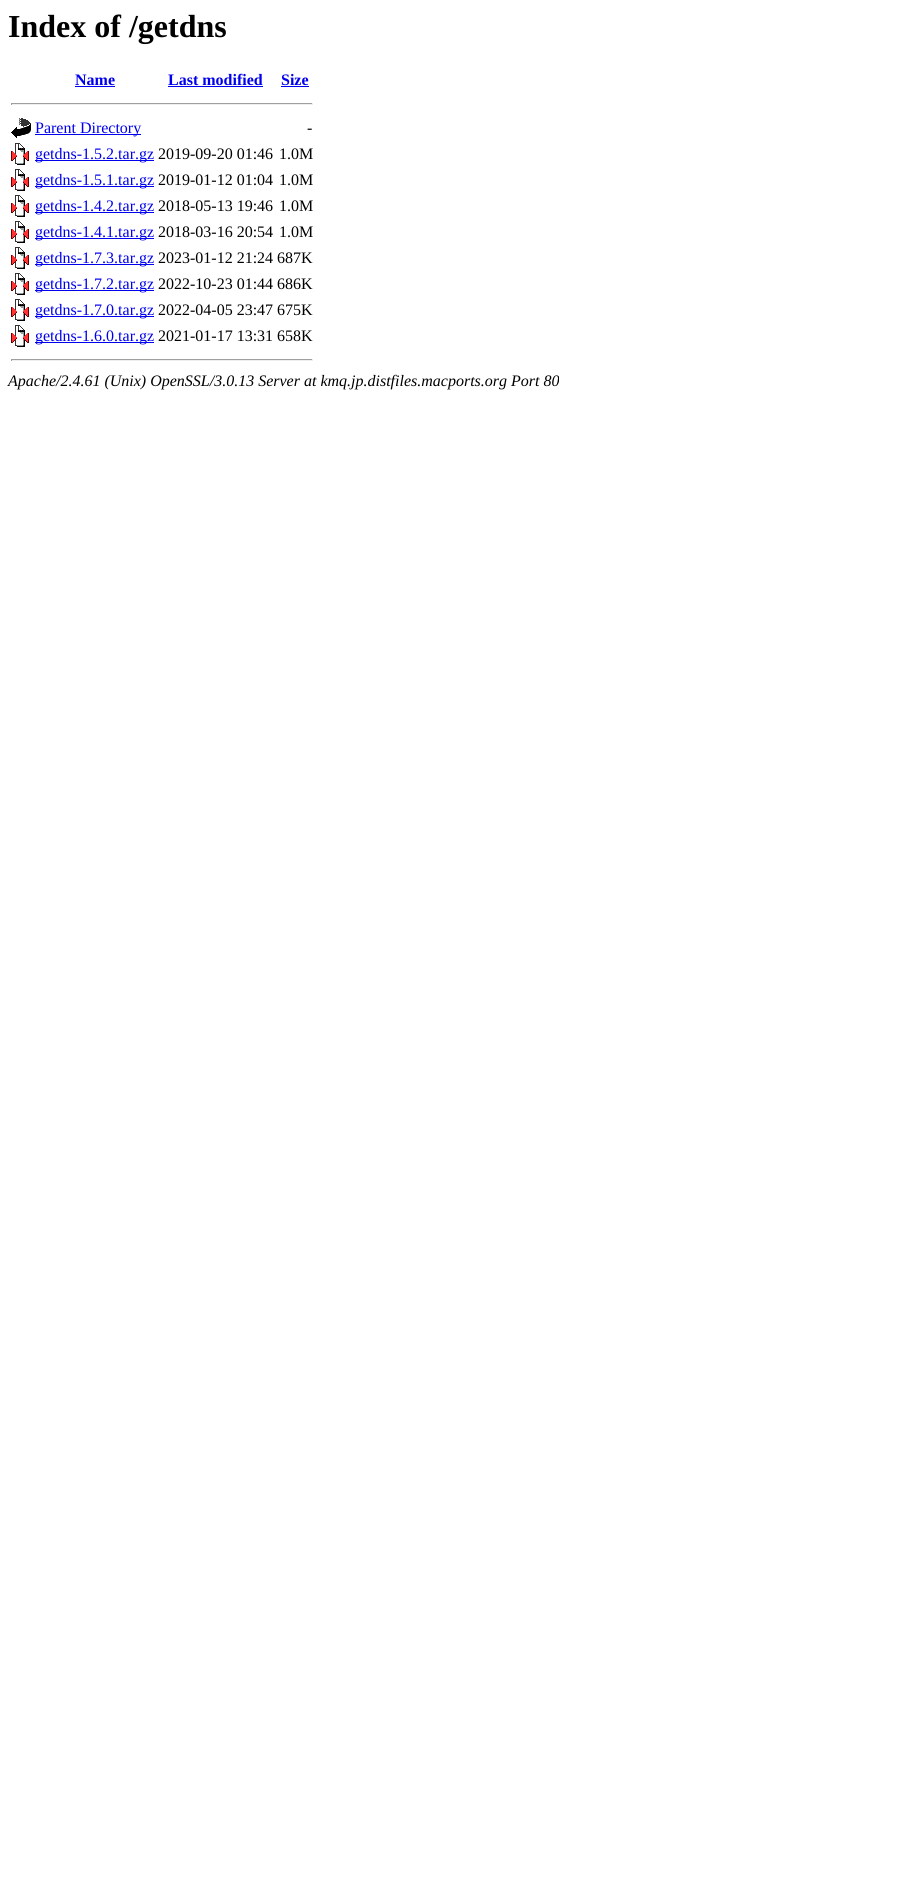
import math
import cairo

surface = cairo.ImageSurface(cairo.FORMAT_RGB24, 919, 1884)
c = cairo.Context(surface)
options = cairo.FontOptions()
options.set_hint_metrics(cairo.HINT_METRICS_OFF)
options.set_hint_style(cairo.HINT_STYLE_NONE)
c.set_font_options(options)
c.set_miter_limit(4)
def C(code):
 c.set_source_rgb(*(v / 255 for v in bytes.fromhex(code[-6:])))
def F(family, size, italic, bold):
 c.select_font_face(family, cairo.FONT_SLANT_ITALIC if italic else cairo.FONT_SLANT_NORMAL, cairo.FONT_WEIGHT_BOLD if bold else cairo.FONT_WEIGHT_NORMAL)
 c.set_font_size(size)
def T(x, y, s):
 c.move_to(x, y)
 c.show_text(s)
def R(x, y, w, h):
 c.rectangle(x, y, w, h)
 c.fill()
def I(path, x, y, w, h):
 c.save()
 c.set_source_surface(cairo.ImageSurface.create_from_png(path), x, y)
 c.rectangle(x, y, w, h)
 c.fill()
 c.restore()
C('ffffff')
c.paint()
F('Liberation Serif',32,0,1)
C('000000')
T(8,37,'Index of /getdns')
F('Liberation Serif',16,0,1)
C('0000ee')
T(75,85,'Name')
R(75,86,40,1)
T(168,85,'Last modified')
R(168,86,95,1)
T(281,85,'Size')
R(281,86,28,1)
C('9f9f9f')
R(11,103,302,1)
C('eeeeee')
R(312,103,1,2)
R(11,104,302,1)
C('9f9f9f')
R(11,103,1,2)
I('1.png',11,118,20,20)
C('0000ee')
R(35,134,106,1)
F('Liberation Serif',16,0,0)
T(35,133,'Parent Directory')
C('000000')
T(307,133,'-')
I('2.png',11,143,18,22)
C('0000ee')
R(35,160,119,1)
T(35,159,'getdns-1.5.2.tar.gz')
C('000000')
T(158,159,'2019-09-20 01:46')
T(279,159,'1.0M')
I('2.png',11,169,18,22)
C('0000ee')
R(35,186,119,1)
T(35,185,'getdns-1.5.1.tar.gz')
C('000000')
T(158,185,'2019-01-12 01:04')
T(279,185,'1.0M')
I('2.png',11,195,18,22)
C('0000ee')
R(35,212,119,1)
T(35,211,'getdns-1.4.2.tar.gz')
C('000000')
T(158,211,'2018-05-13 19:46')
T(279,211,'1.0M')
I('2.png',11,221,18,22)
C('0000ee')
R(35,238,119,1)
T(35,237,'getdns-1.4.1.tar.gz')
C('000000')
T(158,237,'2018-03-16 20:54')
T(279,237,'1.0M')
I('2.png',11,247,18,22)
C('0000ee')
R(35,264,119,1)
T(35,263,'getdns-1.7.3.tar.gz')
C('000000')
T(158,263,'2023-01-12 21:24 687K')
I('2.png',11,273,18,22)
C('0000ee')
R(35,290,119,1)
T(35,289,'getdns-1.7.2.tar.gz')
C('000000')
T(158,289,'2022-10-23 01:44 686K')
I('2.png',11,299,18,22)
C('0000ee')
R(35,316,119,1)
T(35,315,'getdns-1.7.0.tar.gz')
C('000000')
T(158,315,'2022-04-05 23:47 675K')
I('2.png',11,325,18,22)
C('0000ee')
R(35,342,119,1)
T(35,341,'getdns-1.6.0.tar.gz')
C('000000')
T(158,341,'2021-01-17 13:31 658K')
C('9f9f9f')
R(11,359,302,1)
C('eeeeee')
R(312,359,1,2)
R(11,360,302,1)
C('9f9f9f')
R(11,359,1,2)
F('Liberation Serif',16,1,0)
C('000000')
T(8,386,'Apache/2.4.61 (Unix) OpenSSL/3.0.13 Server at kmq.jp.distfiles.macports.org Port 80')
surface.write_to_png('o.png')
